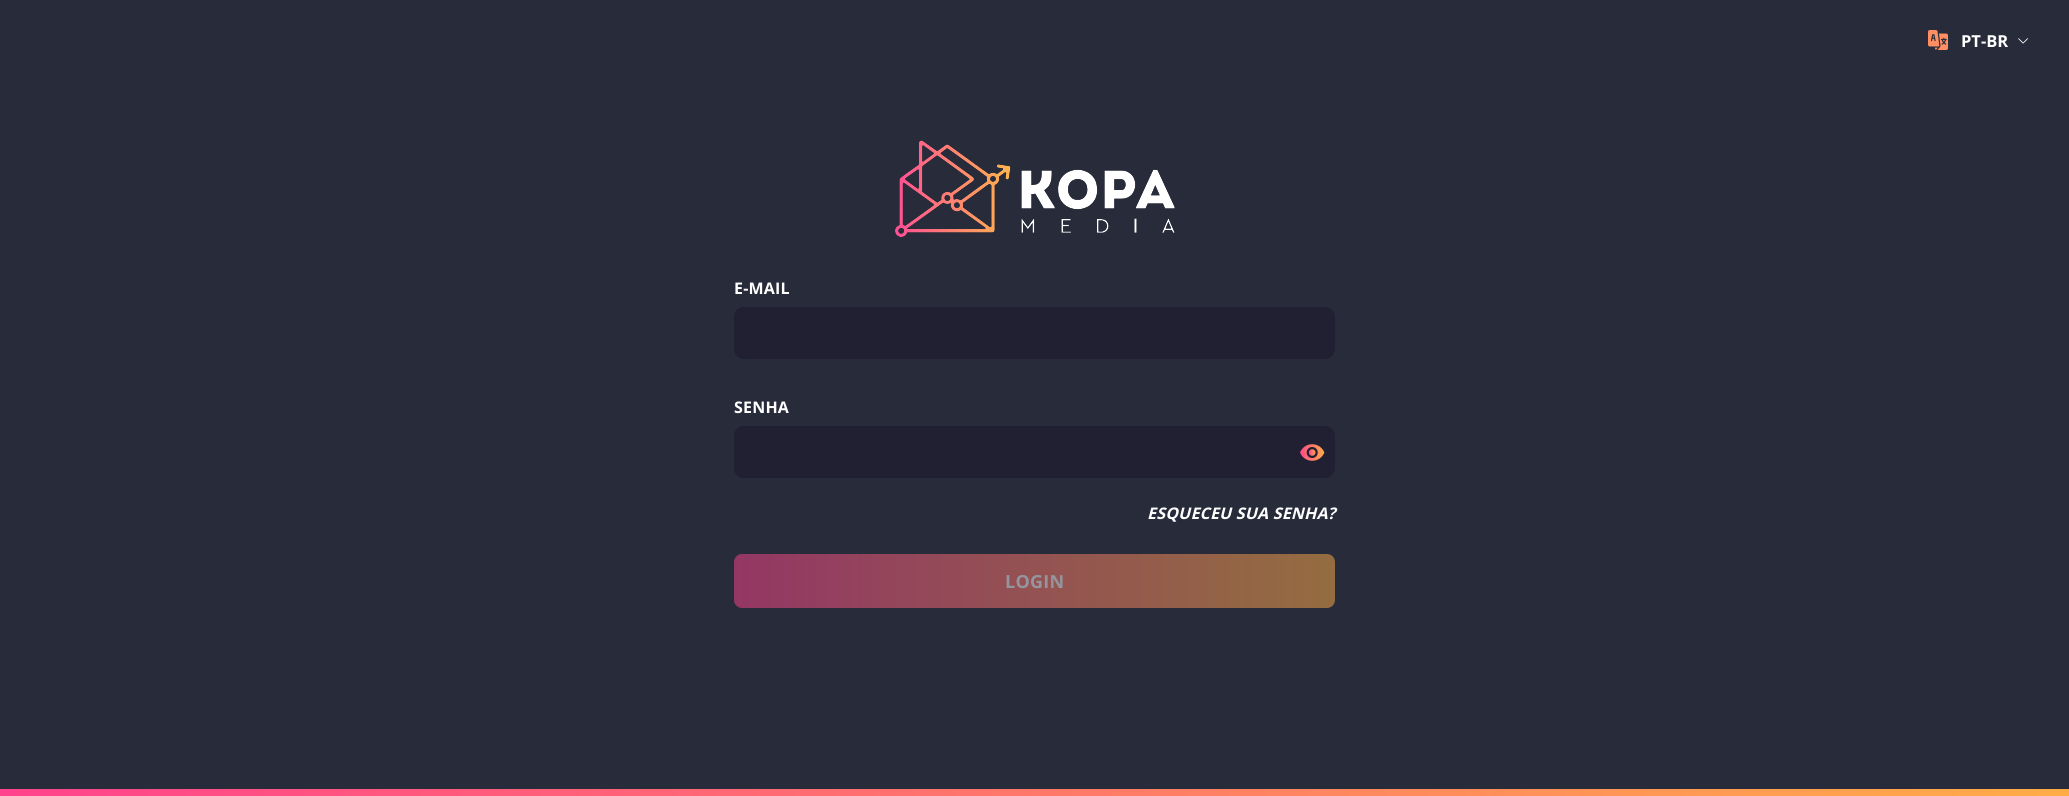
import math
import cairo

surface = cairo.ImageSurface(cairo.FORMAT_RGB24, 2069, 796)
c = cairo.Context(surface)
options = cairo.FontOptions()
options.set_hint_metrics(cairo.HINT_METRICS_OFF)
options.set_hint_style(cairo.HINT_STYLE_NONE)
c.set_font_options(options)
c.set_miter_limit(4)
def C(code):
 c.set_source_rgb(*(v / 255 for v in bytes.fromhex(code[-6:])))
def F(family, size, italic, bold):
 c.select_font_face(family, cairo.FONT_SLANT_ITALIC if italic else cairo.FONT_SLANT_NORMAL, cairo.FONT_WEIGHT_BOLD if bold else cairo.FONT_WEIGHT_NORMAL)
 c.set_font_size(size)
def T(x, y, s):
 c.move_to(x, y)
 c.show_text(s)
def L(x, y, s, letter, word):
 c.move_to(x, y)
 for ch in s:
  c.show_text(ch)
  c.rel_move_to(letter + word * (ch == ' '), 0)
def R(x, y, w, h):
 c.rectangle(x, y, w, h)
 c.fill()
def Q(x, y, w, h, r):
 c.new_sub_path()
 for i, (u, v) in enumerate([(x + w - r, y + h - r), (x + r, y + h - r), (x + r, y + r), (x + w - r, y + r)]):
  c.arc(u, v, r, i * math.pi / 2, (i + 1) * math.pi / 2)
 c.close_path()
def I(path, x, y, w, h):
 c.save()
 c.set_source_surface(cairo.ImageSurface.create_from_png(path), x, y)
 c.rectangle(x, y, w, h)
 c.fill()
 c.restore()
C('282b3a')
c.paint()
I('1.png',1928,30,20,20)
F('Open Sans',16.5,0,1)
C('ffffff')
T(1961,47,'PT-BR')
I('2.png',2018,38,10,6)
I('3.png',895,140,280,97)
F('Open Sans',16,0,1)
L(734,294,'E-MAIL',.2,0)
C('212032')
Q(734,307,601,52,10)
c.fill()
Q(734,307,571,52,10)
c.fill()
C('ffffff')
L(734,413,'SENHA',.2,0)
C('212032')
Q(734,426,601,52,10)
c.fill()
Q(734,426,571,52,10)
c.fill()
I('4.png',1300,444,25,17)
F('Open Sans',16,1,1)
C('ffffff')
L(1147,519,'ESQUECEU SUA SENHA?',.2,0)
gradient = cairo.LinearGradient(734,581,1335,581)
gradient.add_color_stop_rgba(0,0.58,0.216,0.392,1)
gradient.add_color_stop_rgba(1,0.58,0.427,0.251,1)
c.set_source(gradient)
Q(734,554,601,54,8)
c.fill()
F('Open Sans',18,0,1)
C('94959d')
L(1005,588,'LOGIN',.25,0)
gradient = cairo.LinearGradient(0,793,2069,792)
gradient.add_color_stop_rgba(0,1,0.263,0.553,1)
gradient.add_color_stop_rgba(1,1,0.675,0.278,1)
c.set_source(gradient)
R(0,789,2069,7)
surface.write_to_png('o.png')
